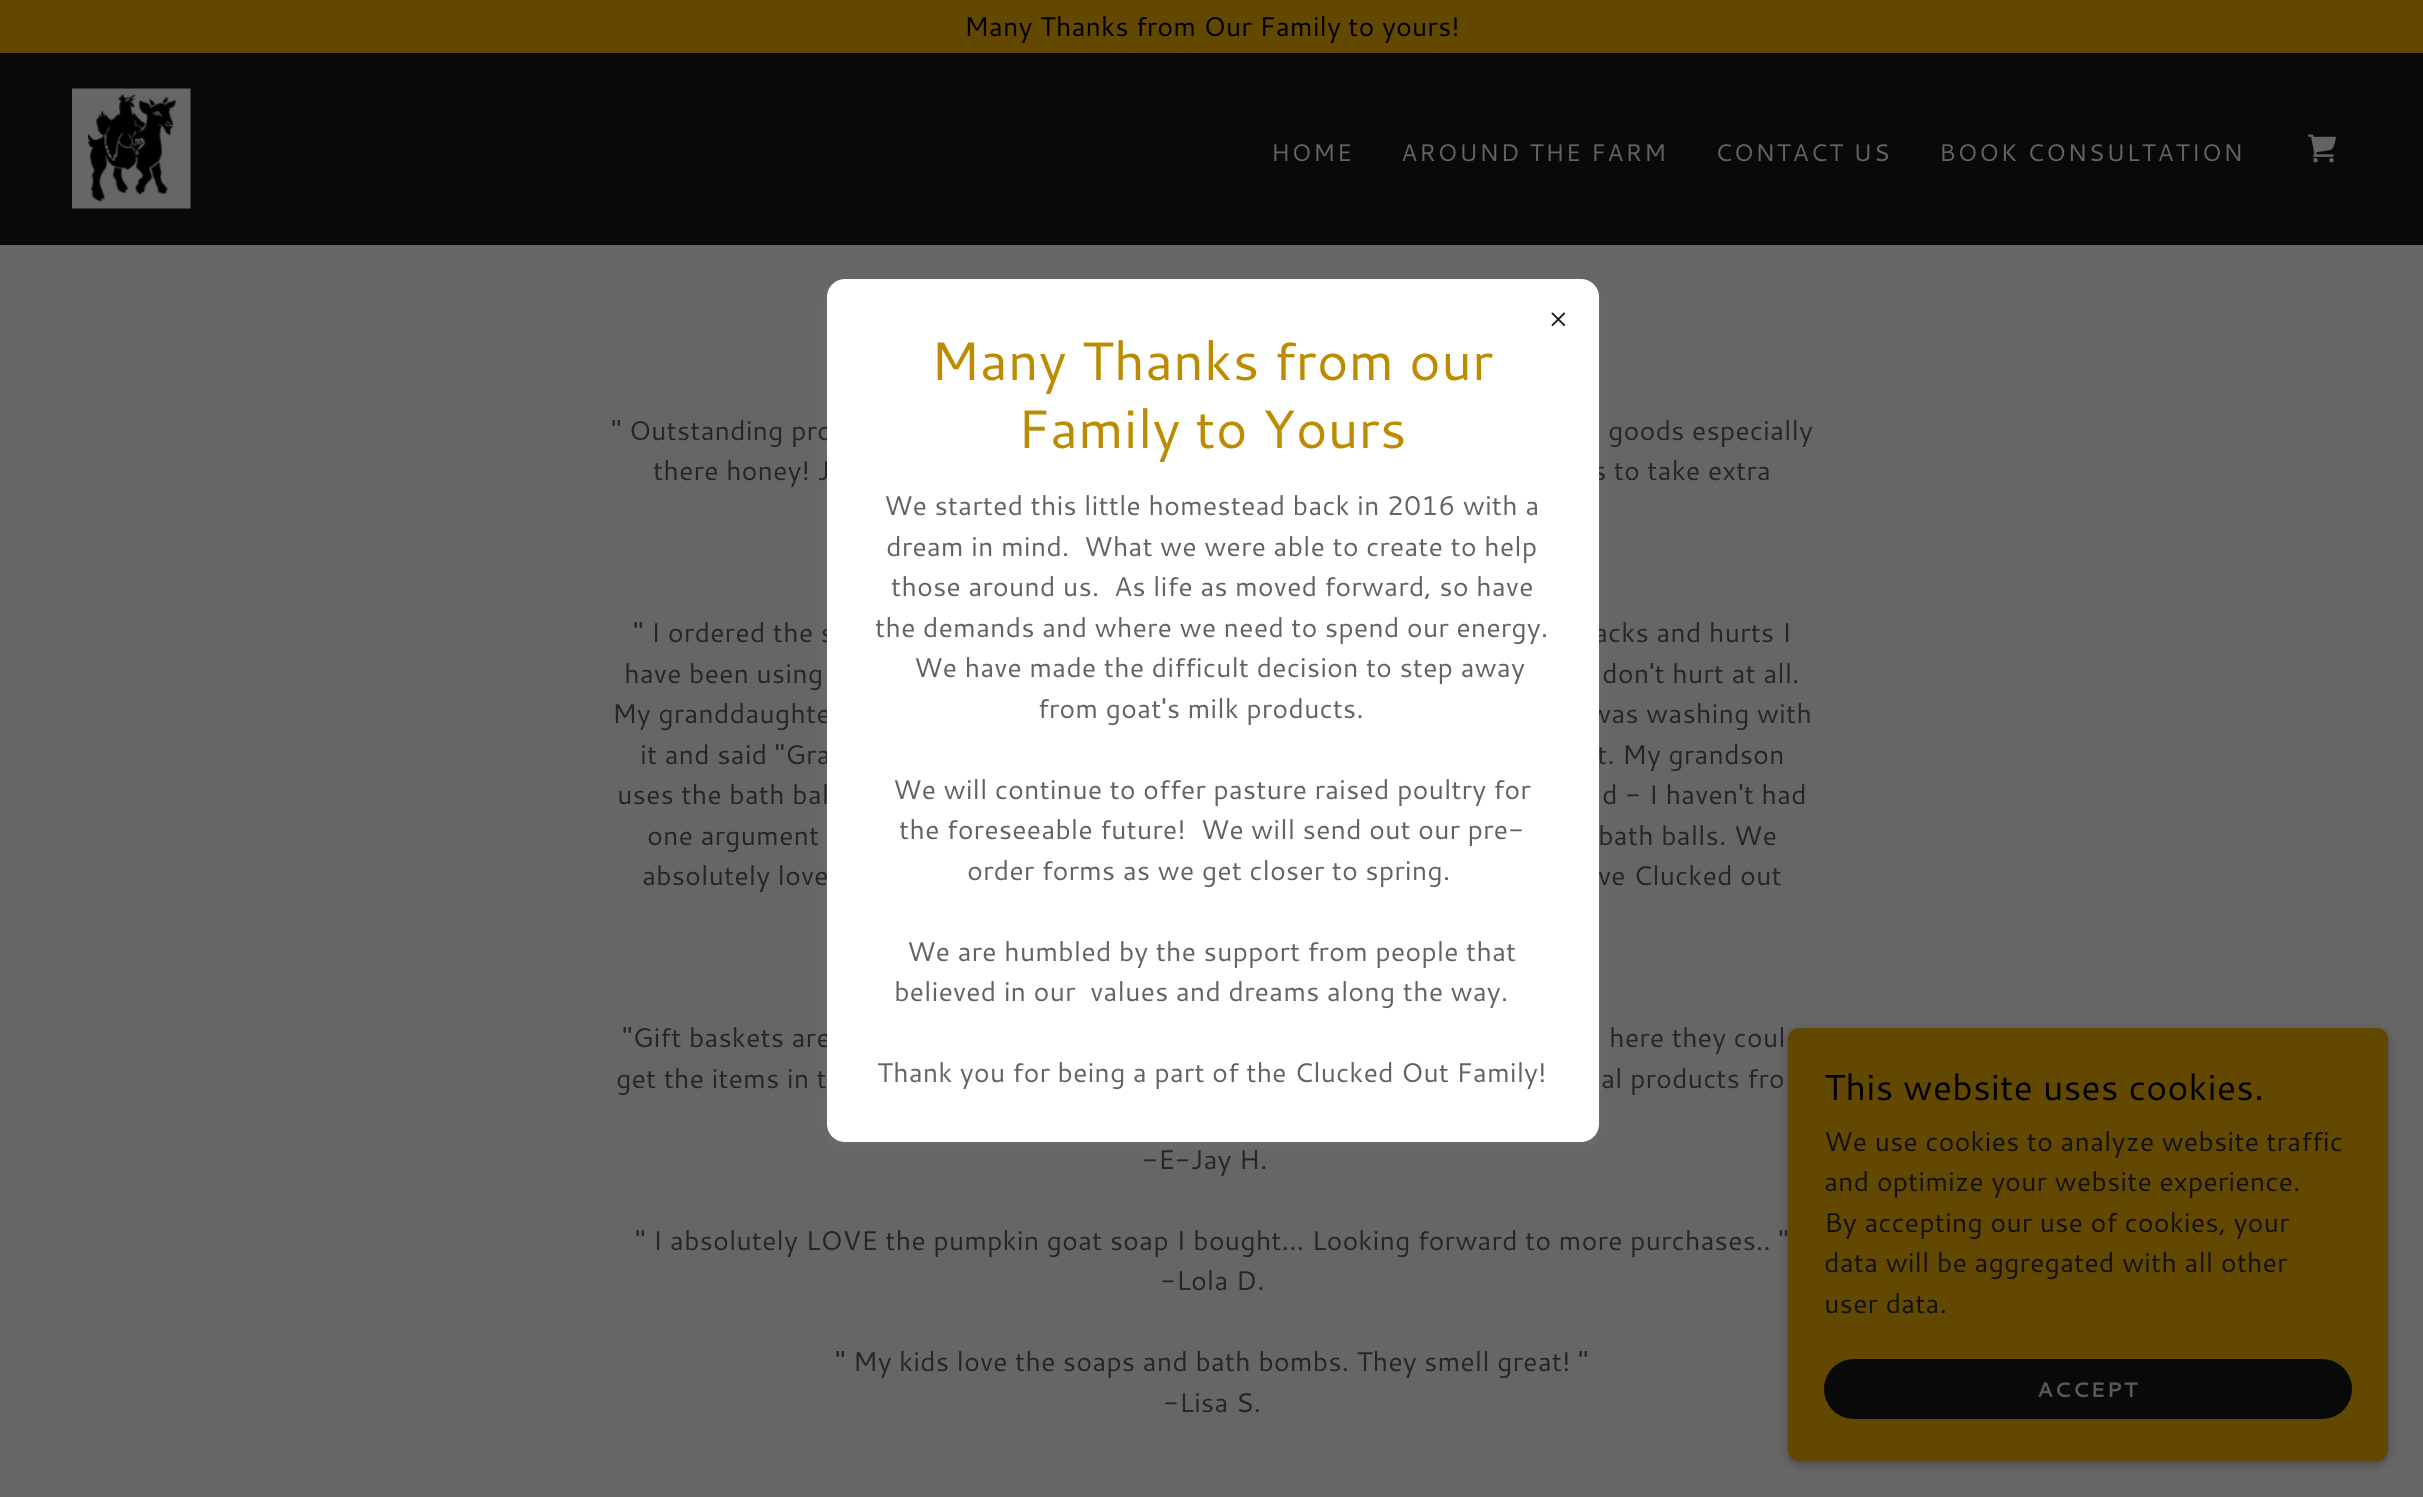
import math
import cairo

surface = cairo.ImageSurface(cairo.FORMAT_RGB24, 2423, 1497)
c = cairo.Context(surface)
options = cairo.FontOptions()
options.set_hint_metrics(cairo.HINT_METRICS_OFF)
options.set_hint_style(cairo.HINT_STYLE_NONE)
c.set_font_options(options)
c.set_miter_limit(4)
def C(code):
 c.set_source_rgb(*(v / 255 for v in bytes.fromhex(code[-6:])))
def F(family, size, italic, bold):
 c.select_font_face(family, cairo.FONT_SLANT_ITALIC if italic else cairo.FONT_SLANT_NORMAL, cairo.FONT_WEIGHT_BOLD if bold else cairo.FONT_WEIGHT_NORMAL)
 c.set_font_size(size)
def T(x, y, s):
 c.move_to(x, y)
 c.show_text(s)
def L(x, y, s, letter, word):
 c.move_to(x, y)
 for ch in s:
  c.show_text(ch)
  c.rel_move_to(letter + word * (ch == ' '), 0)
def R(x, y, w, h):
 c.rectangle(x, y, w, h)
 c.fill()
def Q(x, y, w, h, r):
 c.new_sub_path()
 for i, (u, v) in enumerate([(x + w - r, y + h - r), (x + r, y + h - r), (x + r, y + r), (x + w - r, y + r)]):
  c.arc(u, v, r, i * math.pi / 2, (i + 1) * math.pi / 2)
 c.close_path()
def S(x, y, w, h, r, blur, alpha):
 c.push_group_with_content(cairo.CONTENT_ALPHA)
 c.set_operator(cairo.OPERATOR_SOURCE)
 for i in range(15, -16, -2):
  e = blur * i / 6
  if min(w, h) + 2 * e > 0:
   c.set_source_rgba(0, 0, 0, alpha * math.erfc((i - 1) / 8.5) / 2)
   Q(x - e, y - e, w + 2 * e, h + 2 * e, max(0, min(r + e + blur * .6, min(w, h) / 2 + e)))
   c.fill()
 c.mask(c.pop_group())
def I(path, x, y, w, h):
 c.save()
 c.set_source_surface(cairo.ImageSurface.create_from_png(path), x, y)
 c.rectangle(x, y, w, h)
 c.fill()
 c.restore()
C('090909')
c.paint()
C('624800')
R(0,0,2423,53)
F('Cantarell',27,0,0)
C('000000')
T(964,36,'Many Thanks from Our Family to yours!')
I('1.png',72,88,119,121)
F('Cantarell',24,0,0)
C('636363')
L(1271,161,'HOME',1.75,0)
L(1401,161,'AROUND THE FARM',1.75,0)
L(1715,161,'CONTACT US',1.75,0)
L(1939,161,'BOOK CONSULTATION',1.75,0)
I('2.png',2308,134,28,29)
C('666666')
R(0,245,2423,1252)
C('757575')
S(827,285,772,863,18,9,.4)
F('Cantarell',27,0,0)
C('262626')
T(611,440,'" Outstanding pro')
T(653,480,'there honey! J')
T(1593,480,'s to take extra')
T(633,642,'" I ordered the s')
T(1594,642,'acks and hurts I')
T(612,723,'My granddaughte')
T(1589,723,'was washing with')
T(640,764,'it and said "Gra')
T(1597,764,'t. My grandson')
T(622,1047,'"Gift baskets are')
C('ffffff')
Q(827,279,772,863,18)
c.fill()
I('3.png',1551,312,15,15)
F('Cantarell',54,0,0)
C('bd8b00')
T(930,380,'Many Thanks from our')
T(1017,448,'Family to Yours')
F('Cantarell',27,0,0)
C('636363')
T(884,515,'We started this little homestead back in 2016 with a')
T(886,556,'dream in mind.  What we were able to create to help')
T(891,596,'those around us.  As life as moved forward, so have')
T(875,637,'the demands and where we need to spend our energy.')
T(914,677,'We have made the difficult decision to step away')
T(1038,718,'from goat\'s milk products.')
T(893,799,'We will continue to offer pasture raised poultry for')
T(899,839,'the foreseeable future!  We will send out our pre-')
T(967,880,'order forms as we get closer to spring.')
T(907,961,'We are humbled by the support from people that')
T(894,1001,'believed in our  values and dreams along the way.')
T(877,1082,'Thank you for being a part of the Clucked Out Family!')
C('262626')
T(1608,440,'goods especially')
T(624,683,'have been using')
T(1602,683,'don\'t hurt at all.')
T(617,804,'uses the bath bal')
T(1602,804,'d - I haven\'t had')
T(647,845,'one argument')
T(1598,845,'bath balls. We')
T(642,885,'absolutely love')
T(1598,885,'ve Clucked out')
T(1609,1047,'here they coul')
T(616,1088,'get the items in t')
T(1601,1088,'al products fro')
T(1142,1169,'-E-Jay H.')
T(635,1250,'" I absolutely LOVE the pumpkin goat soap I bought... Looking forward to more purchases.. "')
T(1160,1290,'-Lola D.')
T(835,1371,'" My kids love the soaps and bath bombs. They smell great! "')
T(1163,1412,'-Lisa S.')
C('000000')
S(1788,1031,600,433,11,4.5,.3)
C('624800')
Q(1788,1028,600,433,11)
c.fill()
F('Cantarell',36,0,0)
C('000000')
T(1824,1100,'This website uses cookies.')
F('Cantarell',27,0,0)
C('13110e')
T(1824,1151,'We use cookies to analyze website traffic')
T(1824,1191,'and optimize your website experience.')
T(1824,1232,'By accepting our use of cookies, your')
T(1824,1272,'data will be aggregated with all other')
T(1824,1313,'user data.')
C('090909')
Q(1824,1359,528,60,30)
c.fill()
F('Cantarell',21,0,1)
C('585858')
L(2037,1397,'ACCEPT',1.5,0)
surface.write_to_png('o.png')
